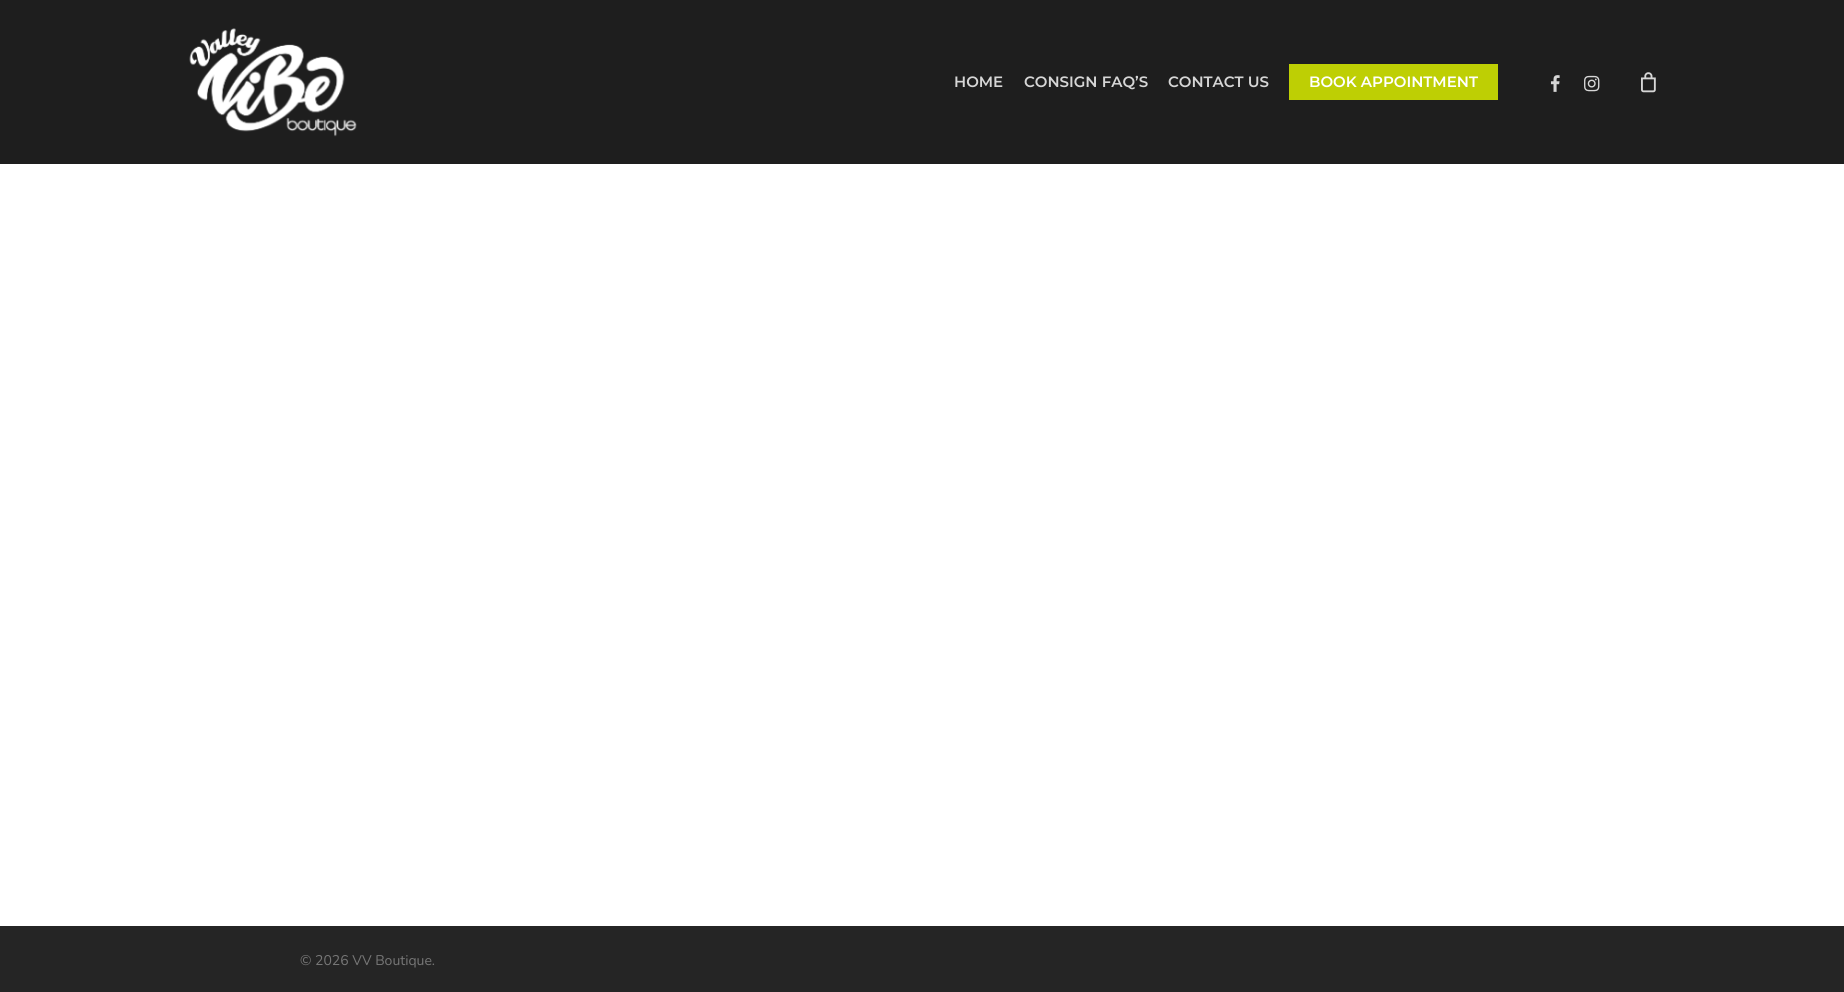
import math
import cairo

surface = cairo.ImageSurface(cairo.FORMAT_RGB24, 1844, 992)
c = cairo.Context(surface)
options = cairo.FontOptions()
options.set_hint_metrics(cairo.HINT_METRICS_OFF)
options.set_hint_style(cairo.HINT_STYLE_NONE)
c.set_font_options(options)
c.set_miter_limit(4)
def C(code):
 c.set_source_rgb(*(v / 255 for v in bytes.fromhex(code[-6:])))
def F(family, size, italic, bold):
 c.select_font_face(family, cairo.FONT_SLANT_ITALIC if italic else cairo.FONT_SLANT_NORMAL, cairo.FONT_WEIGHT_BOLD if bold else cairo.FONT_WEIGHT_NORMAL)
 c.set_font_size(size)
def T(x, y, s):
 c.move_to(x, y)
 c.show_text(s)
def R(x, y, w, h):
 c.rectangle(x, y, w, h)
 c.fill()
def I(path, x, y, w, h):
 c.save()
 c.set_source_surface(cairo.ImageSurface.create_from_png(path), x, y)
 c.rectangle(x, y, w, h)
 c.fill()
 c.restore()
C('ffffff')
c.paint()
C('1e1e1e')
R(0,0,1844,164)
I('1.png',189,28,168,109)
F('Montserrat SemiBold',15,0,0)
C('d6d6d6')
T(954,87,'HOME')
T(1024,87,'CONSIGN FAQ’S')
T(1168,87,'CONTACT US')
C('becf04')
R(1289,64,209,36)
C('ffffff')
T(1309,87,'BOOK APPOINTMENT')
I('2.png',1550,75,10,17)
I('3.png',1584,75,16,17)
I('4.png',1641,72,15,21)
C('252525')
R(0,926,1844,66)
F('Nunito',14,0,0)
C('777777')
T(300,965,'© 2026 VV Boutique.')
surface.write_to_png('o.png')
